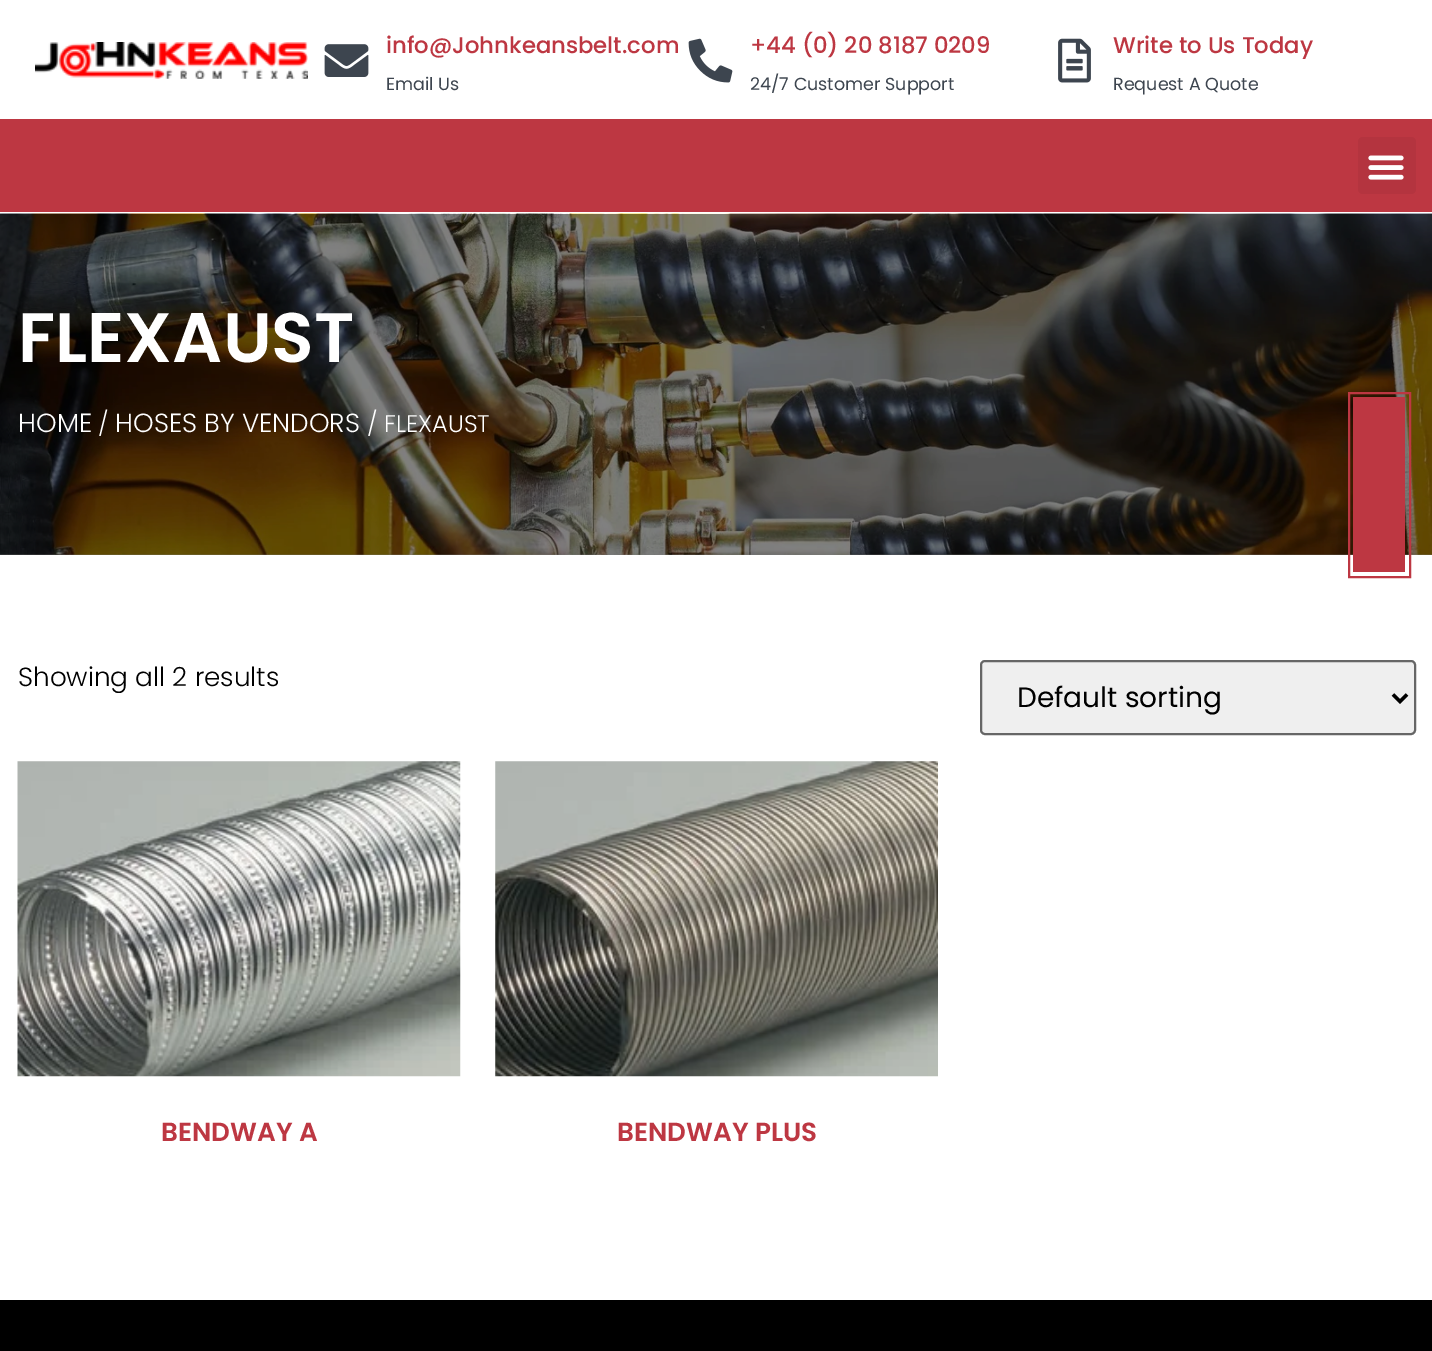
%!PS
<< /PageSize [1432 1351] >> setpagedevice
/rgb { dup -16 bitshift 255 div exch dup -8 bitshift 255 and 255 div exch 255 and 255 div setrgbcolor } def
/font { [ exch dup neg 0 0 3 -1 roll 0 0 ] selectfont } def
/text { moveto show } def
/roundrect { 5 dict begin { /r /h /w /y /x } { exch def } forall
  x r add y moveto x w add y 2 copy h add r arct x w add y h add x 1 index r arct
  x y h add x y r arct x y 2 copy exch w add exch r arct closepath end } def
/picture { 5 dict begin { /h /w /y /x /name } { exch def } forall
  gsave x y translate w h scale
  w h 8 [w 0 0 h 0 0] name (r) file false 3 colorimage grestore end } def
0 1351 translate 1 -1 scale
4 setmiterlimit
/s1 { /Poppins-Medium 22.75 font 16#BD3742 rgb } def
/s2 { /Poppins-Regular 17.5 font 16#3D454F rgb } def
/s3 { /Poppins-SemiBold 70 font 16#FFFFFF rgb } def
/s4 { /Poppins-Light 26.25 font 16#FFFFFF rgb } def
/s5 { /Poppins-Light 24 font 16#FFFFFF rgb } def
/s6 { /Poppins-Light 26.25 font 16#000000 rgb } def
/s7 { /Poppins-Regular 28 font 16#000000 rgb } def
/s8 { /Poppins-SemiBold 26.25 font 16#BD3742 rgb } def
16#FFFFFF rgb
0 0 1432 1351 rectfill
(pic1.raw) 35 42 273 37 picture
(pic2.raw) 324 44 45 33 picture
s1
(info@Johnkeansbelt.com) 386 53 text
s2
(Email Us) 386 90 text
(pic3.raw) 688 38 45 45 picture
s1
(+44 \(0\) 20 8187 0209) 750 53 text
s2
(24/7 Customer Support) 750 90 text
(pic4.raw) 1058 38 33 45 picture
s1
(Write to Us Today) 1113 53 text
s2
(Request A Quote) 1113 90 text
16#BD3742 rgb
0 119 1432 93 rectfill
16#B4343F rgb
1358 137 58 57 5 roundrect fill
(pic5.raw) 1368 155 36 25 picture
(pic6.raw) 0 213 1432 342 picture
s3
(FLEXAUST) 18 362 text
s4
(HOME) 18 432 text
s5
(/) 98 432 text
s4
(HOSES BY VENDORS) 115 432 text
s5
(/ FLEXAUST) 367 432 text
16#BD3742 rgb
1353 397 52 175 rectfill
2 setlinewidth
1349 393 61 184 rectstroke
s6
(Showing all 2 results) 18 686 text
16#EFEFEF rgb
981 661 434 73 4 roundrect gsave fill grestore
16#666666 rgb
stroke
16#000000 rgb
3.5 setlinewidth
1393 694.5 moveto 1400 701.5 lineto 1407 694.5 lineto stroke
s7
(Default sorting) 1017 707 text
(pic7.raw) 17 761 444 316 picture
s8
(BENDWAY A) 161 1141 text
(pic8.raw) 495 761 443 316 picture
(BENDWAY PLUS) 617 1141 text
16#000000 rgb
0 1300 1432 51 rectfill
showpage
